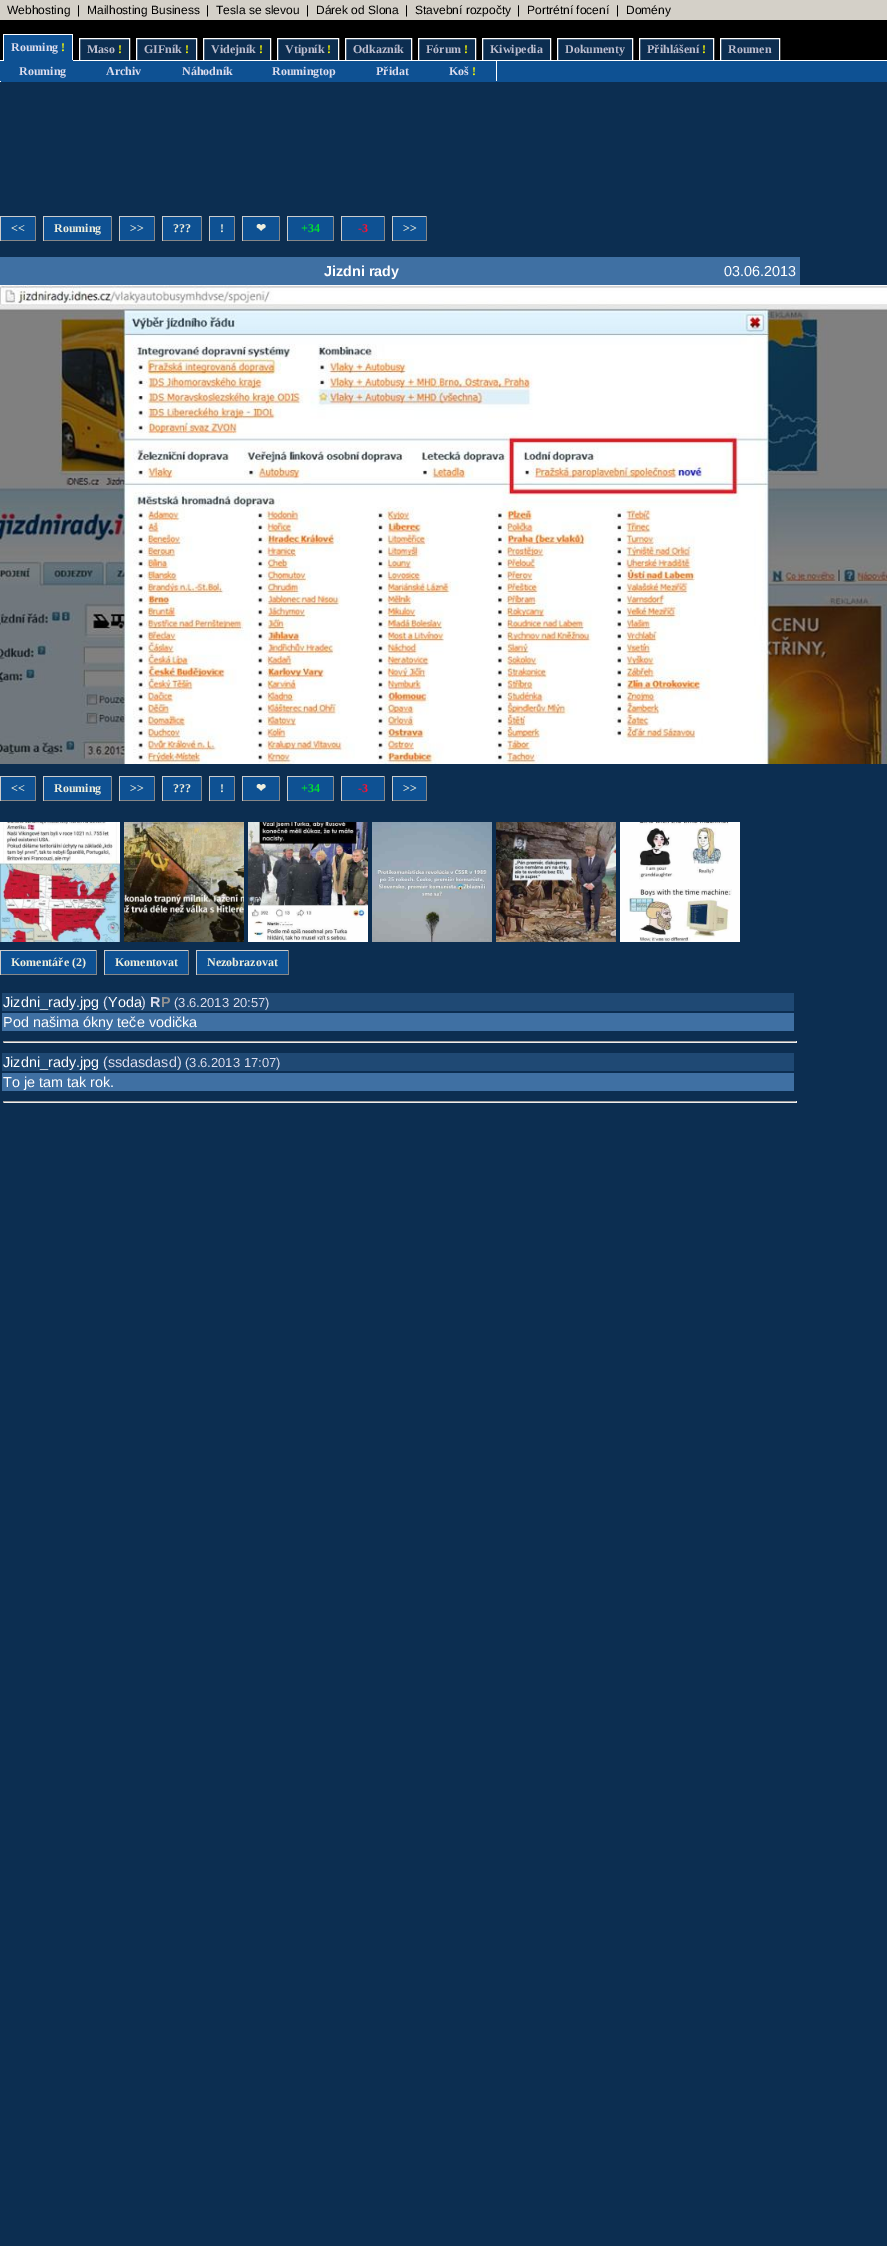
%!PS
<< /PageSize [887 2246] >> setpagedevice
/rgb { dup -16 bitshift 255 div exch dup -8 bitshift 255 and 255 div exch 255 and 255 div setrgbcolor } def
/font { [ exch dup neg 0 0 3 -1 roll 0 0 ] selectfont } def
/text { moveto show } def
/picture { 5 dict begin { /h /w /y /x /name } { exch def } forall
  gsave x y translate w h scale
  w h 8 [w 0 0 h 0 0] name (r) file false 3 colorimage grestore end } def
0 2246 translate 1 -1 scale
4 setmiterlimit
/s1 { /LiberationSans-Regular 12 font 16#000000 rgb } def
/s2 { /LiberationSerif-Bold 12 font 16#DDDDEE rgb } def
/s3 { /LiberationSerif-Bold 12 font 16#FFFF00 rgb } def
/s4 { /LiberationSerif-Bold 12 font 16#BDBDCE rgb } def
/s5 { /LiberationSerif-Bold 12 font 16#EEEEDD rgb } def
/s6 { /DejaVuSans-Bold 12 font 16#EEEEDD rgb } def
/s7 { /LiberationSerif-Bold 12 font 16#00DD33 rgb } def
/s8 { /LiberationSerif-Bold 12 font 16#FF1133 rgb } def
/s9 { /LiberationSans-Bold 14.4 font 16#FEFEFF rgb } def
/s10 { /LiberationSans-Regular 14.4 font 16#FEFEFF rgb } def
/s11 { /LiberationSans-Regular 14.4 font 16#DDDDEE rgb } def
/s12 { /LiberationSans-Bold 14.4 font 16#DDDDEE rgb } def
/s13 { /LiberationSans-Bold 14.4 font 16#909090 rgb } def
/s14 { /LiberationSans-Regular 13 font 16#DDDDEE rgb } def
16#0C2E51 rgb
0 0 887 2246 rectfill
16#D4D0C8 rgb
0 0 887 20 rectfill
s1
(Webhosting) 7 14 text
(|) 77 14 text
(Mailhosting Business) 87 14 text
(|) 206 14 text
(Tesla se slevou) 216 14 text
(|) 306 14 text
(Dárek od Slona) 316 14 text
(|) 405 14 text
(Stavební rozpočty) 415 14 text
(|) 517 14 text
(Portrétní focení) 527 14 text
(|) 616 14 text
(Domény) 626 14 text
0 20 887 40 rectfill
16#FFFFFF rgb
0 60 887 1 rectfill
16#0E5193 rgb
4 35 68 25 rectfill
16#FFFFFF rgb
3 34 70 1 rectfill
72 34 1 27 rectfill
16#0E5193 rgb
3 60 70 1 rectfill
16#FFFFFF rgb
3 34 1 27 rectfill
s2
(Rouming) 11 51 text
s3
(!) 61 51 text
16#0C2E51 rgb
79.5 38.5 moveto 129.5 38.5 lineto 129.5 60.5 lineto 79.5 60.5 lineto closepath gsave fill grestore
16#FFFFFF rgb
stroke
s4
(Maso) 87 53 text
s3
(!) 118 53 text
16#0C2E51 rgb
136.5 38.5 moveto 196.5 38.5 lineto 196.5 60.5 lineto 136.5 60.5 lineto closepath gsave fill grestore
16#FFFFFF rgb
stroke
s4
(GIFník) 144 53 text
s3
(!) 185 53 text
16#0C2E51 rgb
203.5 38.5 moveto 270.5 38.5 lineto 270.5 60.5 lineto 203.5 60.5 lineto closepath gsave fill grestore
16#FFFFFF rgb
stroke
s4
(Videjník) 211 53 text
s3
(!) 259 53 text
16#0C2E51 rgb
277.5 38.5 moveto 338.5 38.5 lineto 338.5 60.5 lineto 277.5 60.5 lineto closepath gsave fill grestore
16#FFFFFF rgb
stroke
s4
(Vtipník) 285 53 text
s3
(!) 327 53 text
16#0C2E51 rgb
345.5 38.5 moveto 411.5 38.5 lineto 411.5 60.5 lineto 345.5 60.5 lineto closepath gsave fill grestore
16#FFFFFF rgb
stroke
s4
(Odkazník) 353 53 text
16#0C2E51 rgb
418.5 38.5 moveto 475.5 38.5 lineto 475.5 60.5 lineto 418.5 60.5 lineto closepath gsave fill grestore
16#FFFFFF rgb
stroke
s4
(Fórum) 426 53 text
s3
(!) 464 53 text
16#0C2E51 rgb
482.5 38.5 moveto 550.5 38.5 lineto 550.5 60.5 lineto 482.5 60.5 lineto closepath gsave fill grestore
16#FFFFFF rgb
stroke
s4
(Kiwipedia) 490 53 text
16#0C2E51 rgb
557.5 38.5 moveto 632.5 38.5 lineto 632.5 60.5 lineto 557.5 60.5 lineto closepath gsave fill grestore
16#FFFFFF rgb
stroke
s4
(Dokumenty) 565 53 text
16#0C2E51 rgb
639.5 38.5 moveto 713.5 38.5 lineto 713.5 60.5 lineto 639.5 60.5 lineto closepath gsave fill grestore
16#FFFFFF rgb
stroke
s4
(Přihlášení) 647 53 text
s3
(!) 702 53 text
16#0C2E51 rgb
720.5 38.5 moveto 779.5 38.5 lineto 779.5 60.5 lineto 720.5 60.5 lineto closepath gsave fill grestore
16#FFFFFF rgb
stroke
s4
(Roumen) 728 53 text
16#0E5193 rgb
1 61 886 21 rectfill
16#FFFFFF rgb
0 81 1 1 rectfill
s2
(Rouming) 19 75 text
16#0E5193 rgb
0 61 1 20 rectfill
s2
(Archiv) 106 75 text
(Náhodník) 182 75 text
(Roumingtop) 272 75 text
(Přidat) 376 75 text
(Koš) 449 75 text
s3
(!) 472 75 text
16#FFFFFF rgb
496 61 1 20 rectfill
16#0E5193 rgb
1 217 34 23 rectfill
16#CCCCCC rgb
0 216 36 1 rectfill
16#888888 rgb
35 216 1 25 rectfill
0 240 36 1 rectfill
16#CCCCCC rgb
0 216 1 25 rectfill
s5
(<<) 11 232 text
16#0E5193 rgb
44 217 67 23 rectfill
16#CCCCCC rgb
43 216 69 1 rectfill
16#888888 rgb
111 216 1 25 rectfill
43 240 69 1 rectfill
16#CCCCCC rgb
43 216 1 25 rectfill
s5
(Rouming) 54 232 text
16#0E5193 rgb
120 217 34 23 rectfill
16#CCCCCC rgb
119 216 36 1 rectfill
16#888888 rgb
154 216 1 25 rectfill
119 240 36 1 rectfill
16#CCCCCC rgb
119 216 1 25 rectfill
s5
(>>) 130 232 text
16#0E5193 rgb
163 217 38 23 rectfill
16#CCCCCC rgb
162 216 40 1 rectfill
16#888888 rgb
201 216 1 25 rectfill
162 240 40 1 rectfill
16#CCCCCC rgb
162 216 1 25 rectfill
s5
(???) 173 232 text
16#0E5193 rgb
210 217 24 23 rectfill
16#CCCCCC rgb
209 216 26 1 rectfill
16#888888 rgb
234 216 1 25 rectfill
209 240 26 1 rectfill
16#CCCCCC rgb
209 216 1 25 rectfill
s5
(!) 220 232 text
16#0E5193 rgb
243 217 36 23 rectfill
16#CCCCCC rgb
242 216 38 1 rectfill
16#888888 rgb
279 216 1 25 rectfill
242 240 38 1 rectfill
16#CCCCCC rgb
242 216 1 25 rectfill
s6
(❤) 256 232 text
16#0E5193 rgb
288 217 45 23 rectfill
16#CCCCCC rgb
287 216 47 1 rectfill
16#888888 rgb
333 216 1 25 rectfill
287 240 47 1 rectfill
16#CCCCCC rgb
287 216 1 25 rectfill
s7
(+34) 301 232 text
16#0E5193 rgb
342 217 42 23 rectfill
16#CCCCCC rgb
341 216 44 1 rectfill
16#888888 rgb
384 216 1 25 rectfill
341 240 44 1 rectfill
16#CCCCCC rgb
341 216 1 25 rectfill
s8
(-3) 358 232 text
16#0E5193 rgb
393 217 33 23 rectfill
16#CCCCCC rgb
392 216 35 1 rectfill
16#888888 rgb
426 216 1 25 rectfill
392 240 35 1 rectfill
16#CCCCCC rgb
392 216 1 25 rectfill
s5
(>>) 403 232 text
16#3F70A3 rgb
0 257 800 28 rectfill
s9
(Jizdni rady) 324 276 text
s10
(03.06.2013) 724 276 text
(pic1.raw) 0 285 887 479 picture
16#0E5193 rgb
1 777 34 23 rectfill
16#CCCCCC rgb
0 776 36 1 rectfill
16#888888 rgb
35 776 1 25 rectfill
0 800 36 1 rectfill
16#CCCCCC rgb
0 776 1 25 rectfill
s5
(<<) 11 792 text
16#0E5193 rgb
44 777 67 23 rectfill
16#CCCCCC rgb
43 776 69 1 rectfill
16#888888 rgb
111 776 1 25 rectfill
43 800 69 1 rectfill
16#CCCCCC rgb
43 776 1 25 rectfill
s5
(Rouming) 54 792 text
16#0E5193 rgb
120 777 34 23 rectfill
16#CCCCCC rgb
119 776 36 1 rectfill
16#888888 rgb
154 776 1 25 rectfill
119 800 36 1 rectfill
16#CCCCCC rgb
119 776 1 25 rectfill
s5
(>>) 130 792 text
16#0E5193 rgb
163 777 38 23 rectfill
16#CCCCCC rgb
162 776 40 1 rectfill
16#888888 rgb
201 776 1 25 rectfill
162 800 40 1 rectfill
16#CCCCCC rgb
162 776 1 25 rectfill
s5
(???) 173 792 text
16#0E5193 rgb
210 777 24 23 rectfill
16#CCCCCC rgb
209 776 26 1 rectfill
16#888888 rgb
234 776 1 25 rectfill
209 800 26 1 rectfill
16#CCCCCC rgb
209 776 1 25 rectfill
s5
(!) 220 792 text
16#0E5193 rgb
243 777 36 23 rectfill
16#CCCCCC rgb
242 776 38 1 rectfill
16#888888 rgb
279 776 1 25 rectfill
242 800 38 1 rectfill
16#CCCCCC rgb
242 776 1 25 rectfill
s6
(❤) 256 792 text
16#0E5193 rgb
288 777 45 23 rectfill
16#CCCCCC rgb
287 776 47 1 rectfill
16#888888 rgb
333 776 1 25 rectfill
287 800 47 1 rectfill
16#CCCCCC rgb
287 776 1 25 rectfill
s7
(+34) 301 792 text
16#0E5193 rgb
342 777 42 23 rectfill
16#CCCCCC rgb
341 776 44 1 rectfill
16#888888 rgb
384 776 1 25 rectfill
341 800 44 1 rectfill
16#CCCCCC rgb
341 776 1 25 rectfill
s8
(-3) 358 792 text
16#0E5193 rgb
393 777 33 23 rectfill
16#CCCCCC rgb
392 776 35 1 rectfill
16#888888 rgb
426 776 1 25 rectfill
392 800 35 1 rectfill
16#CCCCCC rgb
392 776 1 25 rectfill
s5
(>>) 403 792 text
(pic2.raw) 0 822 120 120 picture
(pic3.raw) 124 822 120 120 picture
(pic4.raw) 248 822 120 120 picture
(pic5.raw) 372 822 120 120 picture
(pic6.raw) 496 822 120 120 picture
(pic7.raw) 620 822 120 120 picture
16#0E5193 rgb
1 951 95 23 rectfill
16#CCCCCC rgb
0 950 97 1 rectfill
16#888888 rgb
96 950 1 25 rectfill
0 974 97 1 rectfill
16#CCCCCC rgb
0 950 1 25 rectfill
s5
(Komentáře \(2\)) 11 966 text
16#0E5193 rgb
105 951 83 23 rectfill
16#CCCCCC rgb
104 950 85 1 rectfill
16#888888 rgb
188 950 1 25 rectfill
104 974 85 1 rectfill
16#CCCCCC rgb
104 950 1 25 rectfill
s5
(Komentovat) 115 966 text
16#0E5193 rgb
197 951 91 23 rectfill
16#CCCCCC rgb
196 950 93 1 rectfill
16#888888 rgb
288 950 1 25 rectfill
196 974 93 1 rectfill
16#CCCCCC rgb
196 950 1 25 rectfill
s5
(Nezobrazovat) 207 966 text
16#1F4974 rgb
2 993 792 18 rectfill
s10
(Jizdni_rady.jpg) 3 1007 text
s11
(\() 103 1007 text
s10
(Yoda) 108 1007 text
s11
(\)) 141 1007 text
s12
(R) 150 1007 text
s13
(P) 161 1007 text
s14
(\(3.6.2013 20:57\)) 174 1007 text
16#3F70A3 rgb
2 1013 792 18 rectfill
s10
(Pod našima ókny teče vodička) 3 1027 text
16#9F9F9F rgb
3 1041 794 1 rectfill
16#EEEEEE rgb
796 1041 1 2 rectfill
3 1042 794 1 rectfill
16#9F9F9F rgb
3 1041 1 2 rectfill
16#1F4974 rgb
2 1053 792 18 rectfill
s10
(Jizdni_rady.jpg) 3 1067 text
s11
(\(ssdasdasd\)) 103 1067 text
s14
(\(3.6.2013 17:07\)) 185 1067 text
16#3F70A3 rgb
2 1073 792 18 rectfill
s10
(To je tam tak rok.) 3 1087 text
16#9F9F9F rgb
3 1101 794 1 rectfill
16#EEEEEE rgb
796 1101 1 2 rectfill
3 1102 794 1 rectfill
16#9F9F9F rgb
3 1101 1 2 rectfill
showpage
